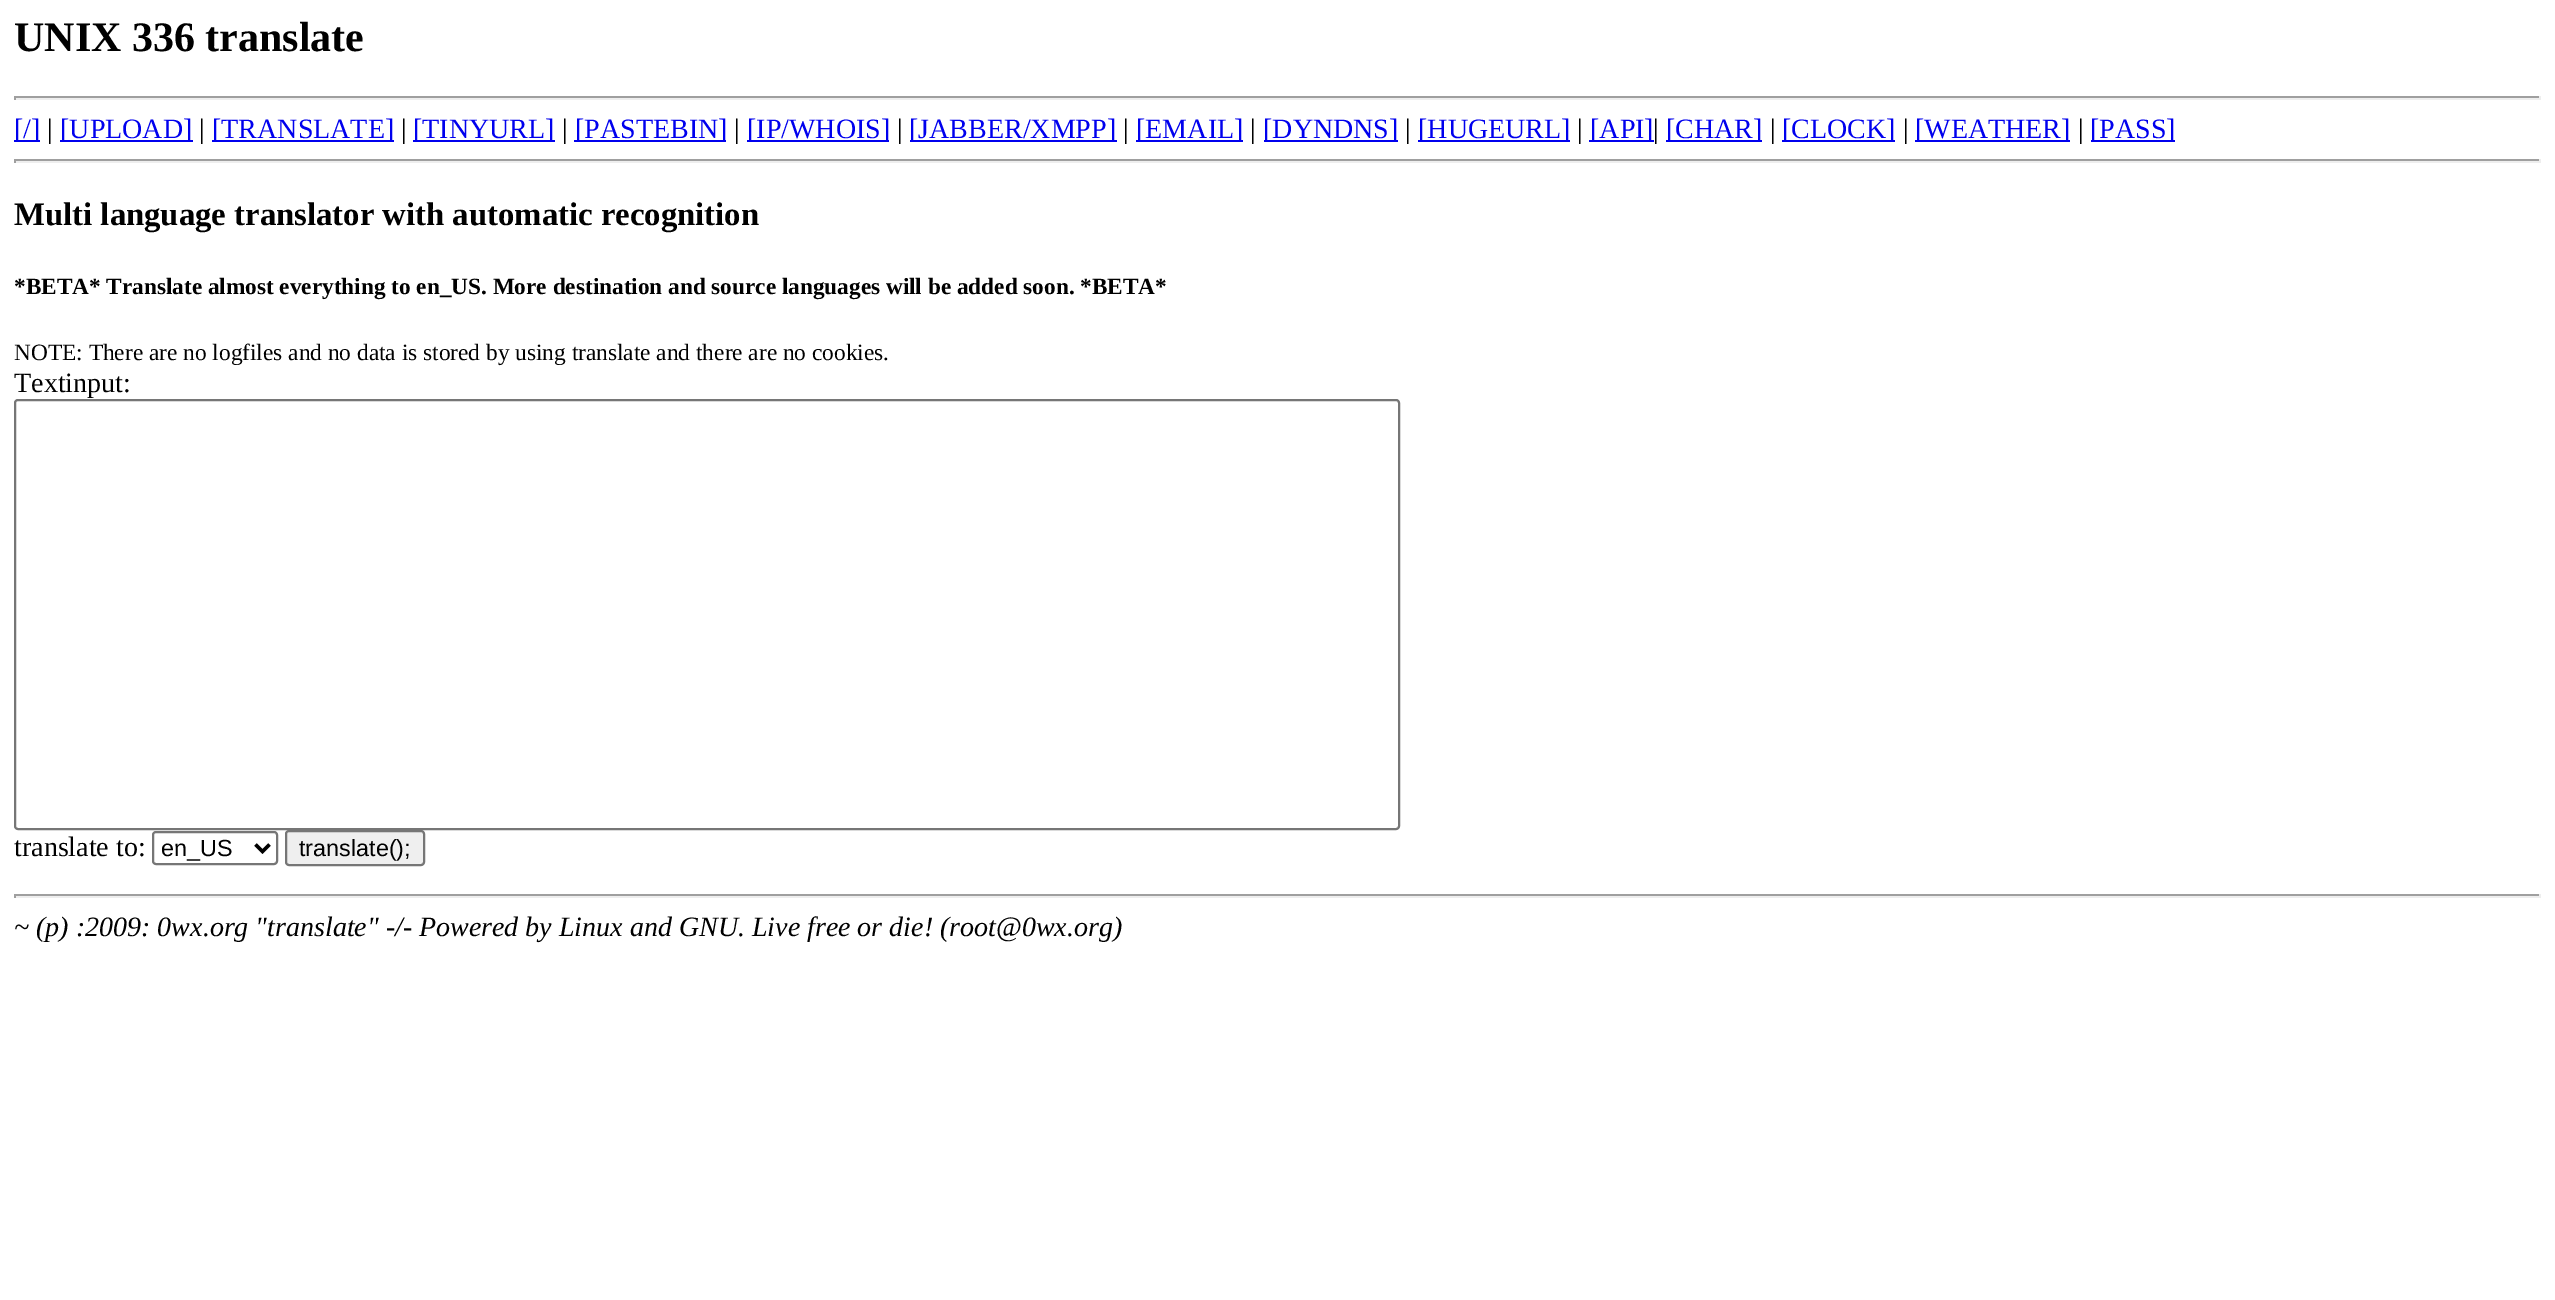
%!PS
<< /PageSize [2555 1300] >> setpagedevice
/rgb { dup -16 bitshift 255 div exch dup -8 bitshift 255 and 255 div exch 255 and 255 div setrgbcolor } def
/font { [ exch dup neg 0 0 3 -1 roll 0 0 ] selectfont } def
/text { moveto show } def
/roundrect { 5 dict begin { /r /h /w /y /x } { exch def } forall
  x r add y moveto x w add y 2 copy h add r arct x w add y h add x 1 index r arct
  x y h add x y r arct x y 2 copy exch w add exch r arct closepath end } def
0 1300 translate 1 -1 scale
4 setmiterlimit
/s1 { /LiberationSerif-Bold 42 font 16#000000 rgb } def
/s2 { /LiberationSerif-Regular 28 font 16#0000EE rgb } def
/s3 { /LiberationSerif-Regular 28 font 16#000000 rgb } def
/s4 { /LiberationSerif-Bold 32.75 font 16#000000 rgb } def
/s5 { /LiberationSerif-Bold 23.25 font 16#000000 rgb } def
/s6 { /LiberationSerif-Regular 23.35 font 16#000000 rgb } def
/s7 { /LiberationSans-Regular 23.35 font 16#000000 rgb } def
/s8 { /LiberationSerif-Italic 28 font 16#000000 rgb } def
16#FFFFFF rgb
0 0 2555 1300 rectfill
s1
(UNIX 336 translate) 14 51 text
16#9F9F9F rgb
14 96 2527 2 rectfill
16#EEEEEE rgb
2539 96 2 4 rectfill
14 98 2527 2 rectfill
16#9F9F9F rgb
14 96 2 4 rectfill
16#0000EE rgb
14 140 26 2 rectfill
s2
([/]) 14 138 text
s3
(|) 47 138 text
16#0000EE rgb
60 140 133 2 rectfill
([UPLOAD]) 60 138 text
s3
(|) 199 138 text
16#0000EE rgb
212 140 182 2 rectfill
([TRANSLATE]) 212 138 text
s3
(|) 401 138 text
16#0000EE rgb
413 140 142 2 rectfill
([TINYURL]) 413 138 text
s3
(|) 562 138 text
16#0000EE rgb
574 140 152 2 rectfill
([PASTEBIN]) 575 138 text
s3
(|) 734 138 text
16#0000EE rgb
747 140 142 2 rectfill
([IP/WHOIS]) 747 138 text
s3
(|) 897 138 text
16#0000EE rgb
910 140 207 2 rectfill
([JABBER/XMPP]) 909 138 text
s3
(|) 1123 138 text
16#0000EE rgb
1136 140 107 2 rectfill
([EMAIL]) 1136 138 text
s3
(|) 1250 138 text
16#0000EE rgb
1264 140 134 2 rectfill
([DYNDNS]) 1263 138 text
s3
(|) 1405 138 text
16#0000EE rgb
1418 140 152 2 rectfill
([HUGEURL]) 1418 138 text
s3
(|) 1577 138 text
16#0000EE rgb
1589 140 65 2 rectfill
([API]) 1590 138 text
s3
(|) 1653 138 text
16#0000EE rgb
1666 140 96 2 rectfill
([CHAR]) 1666 138 text
s3
(|) 1770 138 text
16#0000EE rgb
1782 140 113 2 rectfill
([CLOCK]) 1782 138 text
s3
(|) 1903 138 text
16#0000EE rgb
1915 140 155 2 rectfill
([WEATHER]) 1915 138 text
s3
(|) 2078 138 text
16#0000EE rgb
2091 140 84 2 rectfill
([PASS]) 2090 138 text
16#9F9F9F rgb
14 159 2527 2 rectfill
16#EEEEEE rgb
2539 159 2 4 rectfill
14 161 2527 2 rectfill
16#9F9F9F rgb
14 159 2 4 rectfill
s4
(Multi language translator with automatic recognition) 14 225 text
s5
(*BETA* Translate almost everything to en_US. More destination and source languages will be added soon. *BETA*) 14 294 text
s6
(NOTE: There are no logfiles and no data is stored by using translate and there are no cookies.) 14 360 text
s3
(Textinput:) 14 392 text
16#767676 rgb
2 setlinewidth
15 400 1384 429 3 roundrect stroke
s3
(translate to:) 14 856 text
16#767676 rgb
153 832 124 32 3 roundrect stroke
16#000000 rgb
3.5 setlinewidth
255.5 844.5 moveto 262.5 851.5 lineto 269.5 844.5 lineto stroke
s7
(en_US) 161 856 text
16#EFEFEF rgb
286 831 138 34 3 roundrect gsave fill grestore
16#767676 rgb
2 setlinewidth
stroke
s7
(translate\(\);) 299 856 text
16#9F9F9F rgb
14 894 2527 2 rectfill
16#EEEEEE rgb
2539 894 2 4 rectfill
14 896 2527 2 rectfill
16#9F9F9F rgb
14 894 2 4 rectfill
s8
(~ \(p\) :2009: 0wx.org "translate" -/- Powered by Linux and GNU. Live free or die! \(root@0wx.org\)) 14 936 text
showpage
